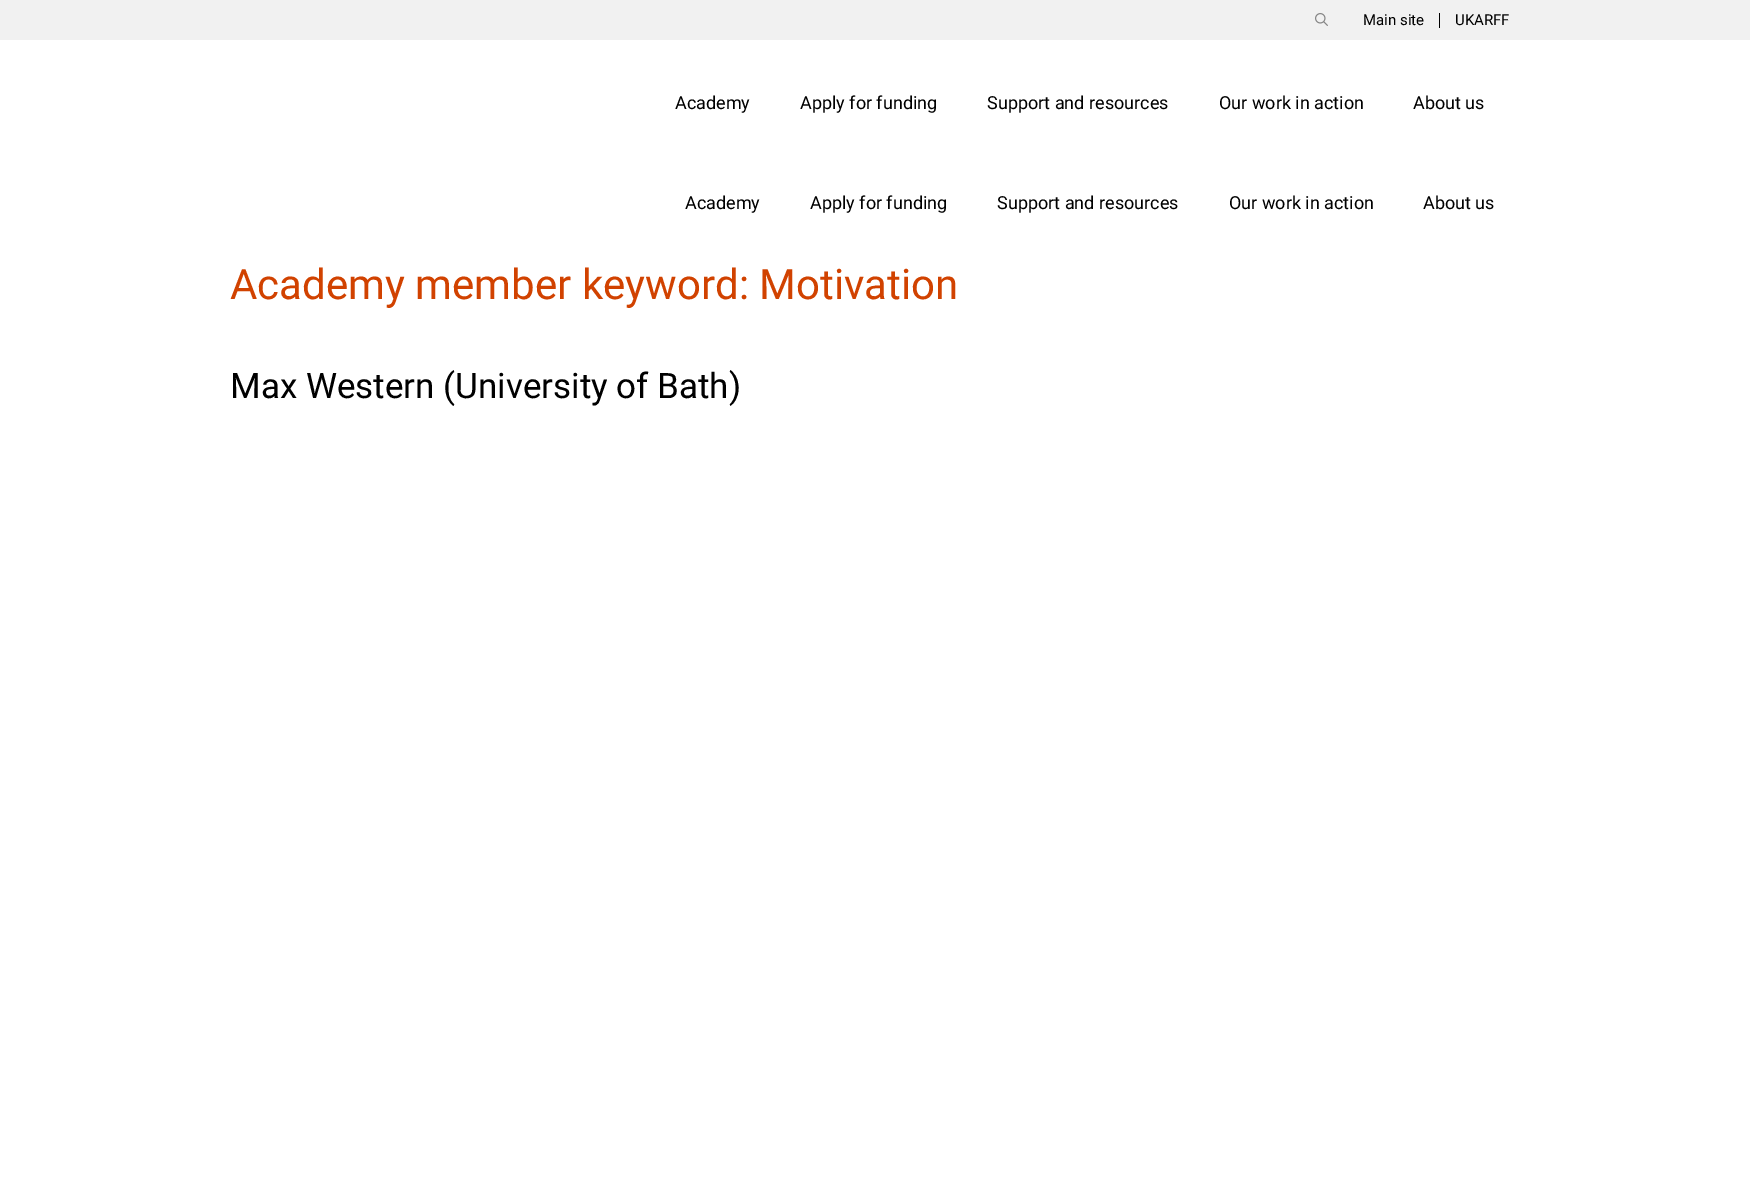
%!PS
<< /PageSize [1750 1190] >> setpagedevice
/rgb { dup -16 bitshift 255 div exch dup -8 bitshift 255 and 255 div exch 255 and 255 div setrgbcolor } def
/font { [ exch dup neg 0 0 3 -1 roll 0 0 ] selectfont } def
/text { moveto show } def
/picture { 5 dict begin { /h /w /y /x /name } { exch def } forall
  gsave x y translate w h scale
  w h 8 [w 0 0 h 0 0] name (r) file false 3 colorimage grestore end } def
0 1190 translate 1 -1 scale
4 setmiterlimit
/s1 { /Roboto-Regular 15 font 16#000000 rgb } def
/s2 { /Roboto-Regular 18 font 16#000000 rgb } def
/s3 { /Roboto-Regular 42 font 16#D14200 rgb } def
/s4 { /Roboto-Regular 35 font 16#000000 rgb } def
16#FFFFFF rgb
0 0 1750 1190 rectfill
16#F1F1F1 rgb
0 0 1750 40 rectfill
(pic1.raw) 1315 13 13 13 picture
16#000000 rgb
1439 13 1 15 rectfill
s1
(Main site) 1363 25 text
(UKARFF) 1455 25 text
s2
(Academy) 675 109 text
(Apply for funding) 800 109 text
(Support and resources) 987 109 text
(Our work in action) 1219 109 text
(About us) 1413 109 text
(Academy) 685 209 text
(Apply for funding) 810 209 text
(Support and resources) 997 209 text
(Our work in action) 1229 209 text
(About us) 1423 209 text
s3
(Academy member keyword: Motivation) 230 299 text
s4
(Max Western \(University of Bath\)) 230 398 text
showpage
